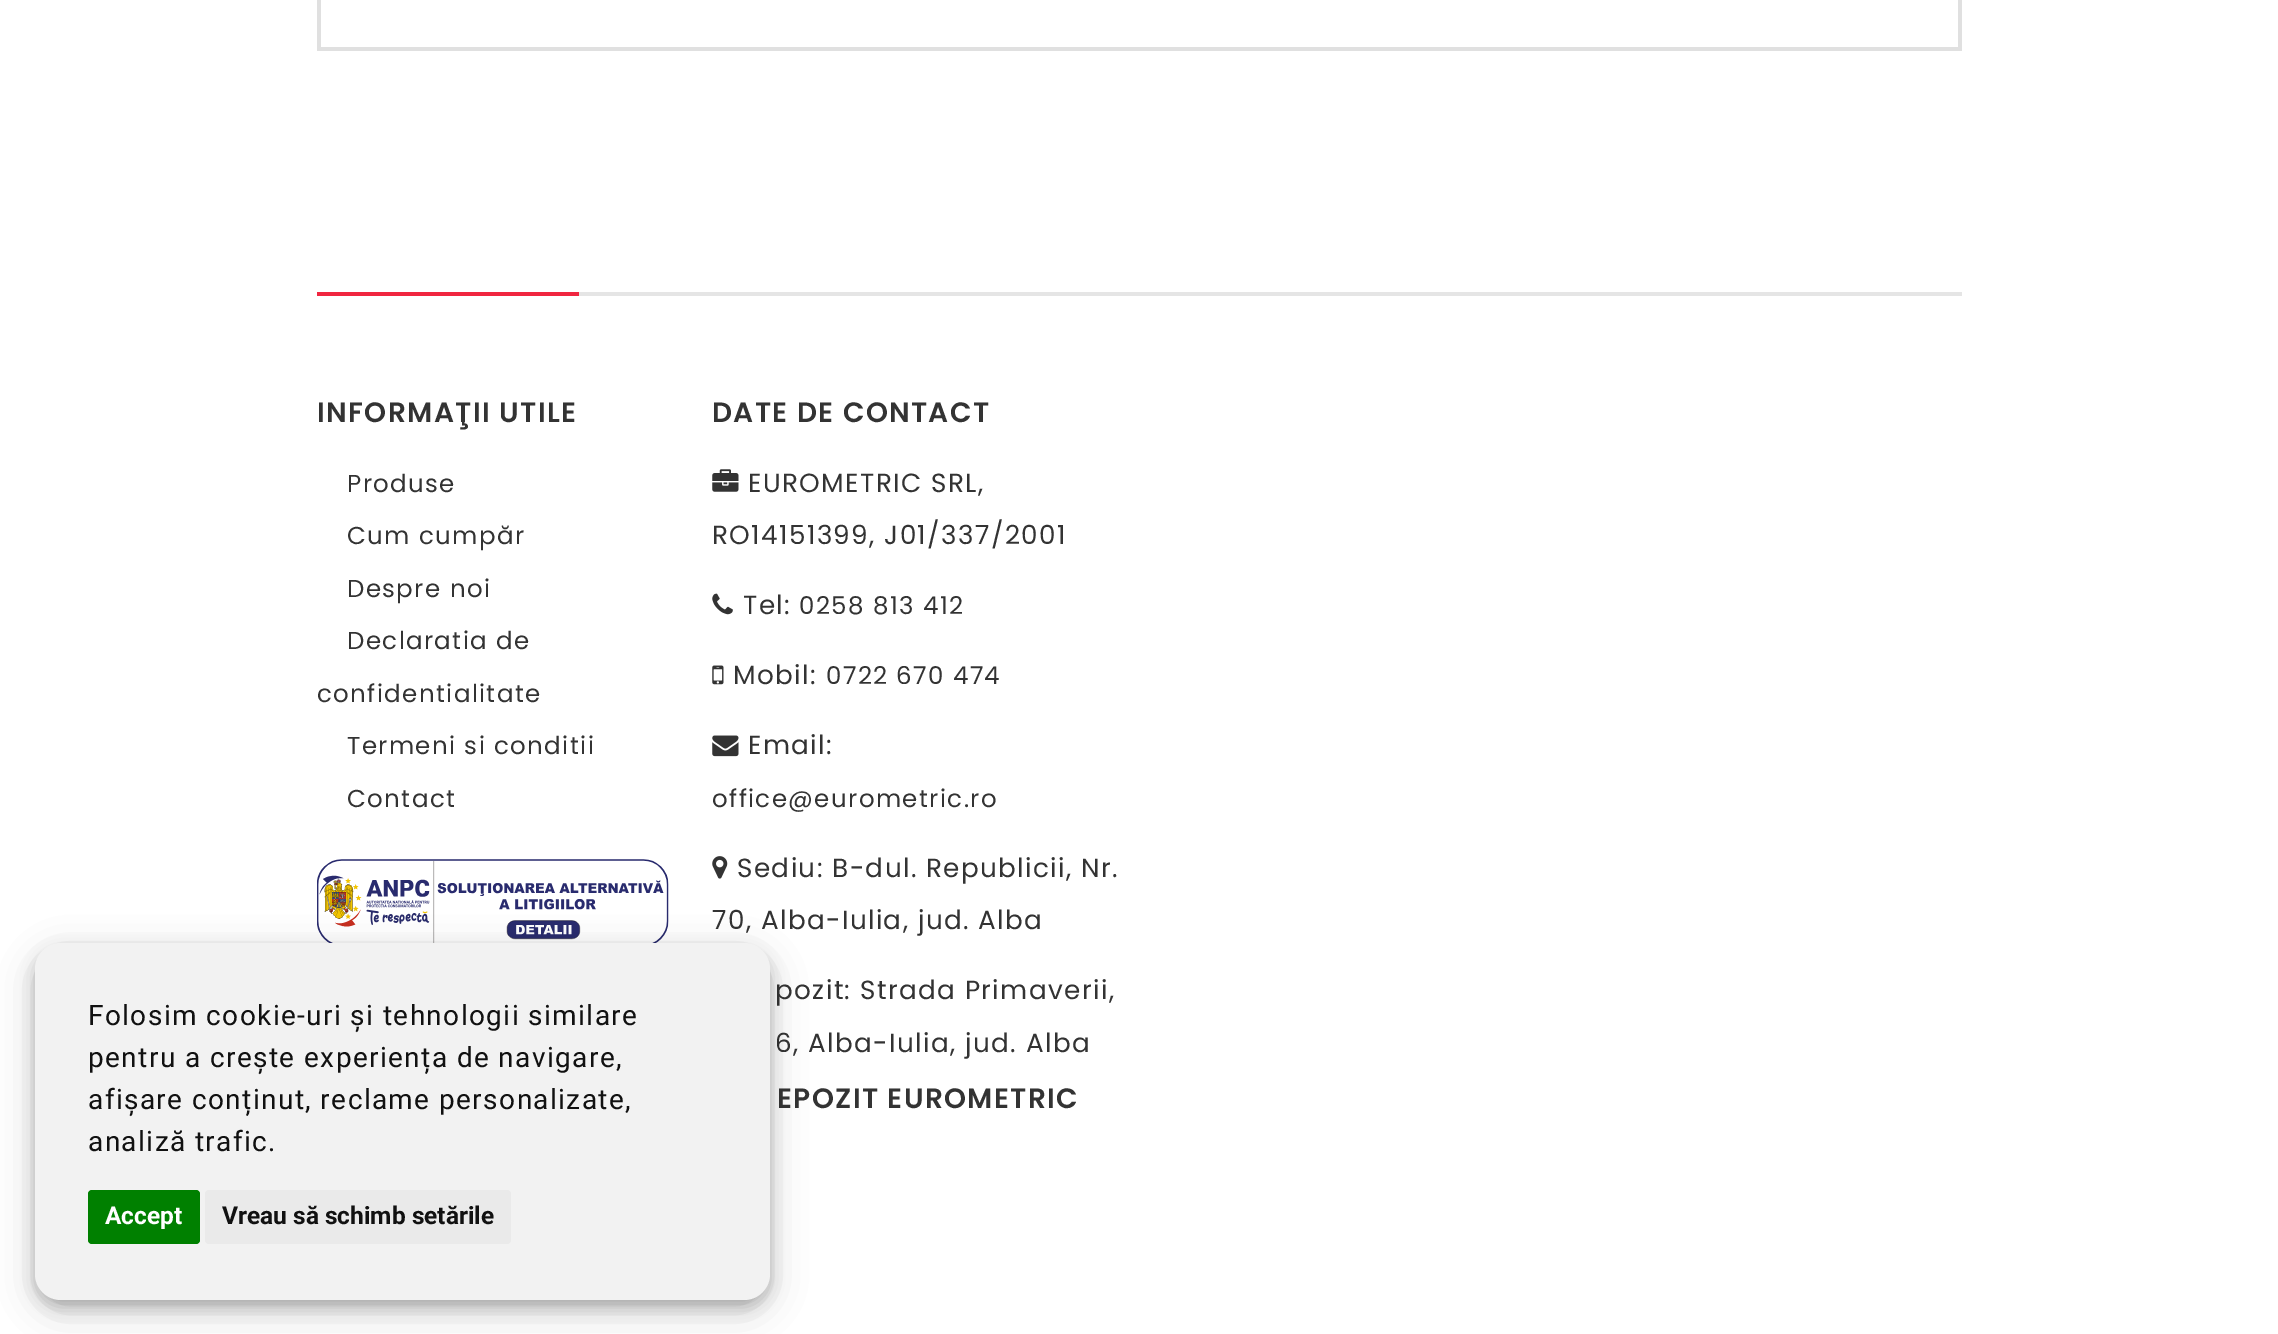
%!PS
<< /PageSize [2278 1334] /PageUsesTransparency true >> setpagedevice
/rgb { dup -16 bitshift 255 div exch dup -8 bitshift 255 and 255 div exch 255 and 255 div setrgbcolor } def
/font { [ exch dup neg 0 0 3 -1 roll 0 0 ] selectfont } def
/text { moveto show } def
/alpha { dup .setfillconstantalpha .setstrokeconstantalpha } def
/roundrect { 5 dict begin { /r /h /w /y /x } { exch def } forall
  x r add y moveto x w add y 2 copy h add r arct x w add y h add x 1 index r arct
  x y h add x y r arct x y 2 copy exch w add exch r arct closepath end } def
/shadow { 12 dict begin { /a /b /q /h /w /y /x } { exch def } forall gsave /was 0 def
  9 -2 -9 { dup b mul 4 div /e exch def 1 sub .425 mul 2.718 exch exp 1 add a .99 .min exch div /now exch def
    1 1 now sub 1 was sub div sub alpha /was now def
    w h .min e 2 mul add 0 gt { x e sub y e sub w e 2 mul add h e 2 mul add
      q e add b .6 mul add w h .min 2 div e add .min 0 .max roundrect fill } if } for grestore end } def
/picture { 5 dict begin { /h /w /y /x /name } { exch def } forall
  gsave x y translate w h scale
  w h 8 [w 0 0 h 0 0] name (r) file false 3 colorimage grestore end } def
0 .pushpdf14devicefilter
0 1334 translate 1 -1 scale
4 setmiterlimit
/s1 { /Roboto-Bold 24.5 font 16#FFFFFF rgb } def
/s2 { /Roboto-Bold 24.5 font 16#111111 rgb } def
16#FFFFFF rgb
0 0 2278 1334 rectfill
16#E0E0E0 rgb
1958 0 4 51 rectfill
317 47 1645 4 rectfill
317 0 4 51 rectfill
16#E5E5E5 rgb
579 292 1383 4 rectfill
16#F02640 rgb
317 292 262 4 rectfill
/Poppins-SemiBold 28 font
16#333333 rgb
317 422 moveto 1.4 0 (INFORMAŢII UTILE) ashow
/Poppins-Regular 24.5 font
347 492 moveto 1.4 0 (Produse) ashow
347 544 moveto 1.4 0 (Cum cumpăr) ashow
347 597 moveto 1.4 0 (Despre noi) ashow
347 649 moveto 1.4 0 (Declaratia de) ashow
317 702 moveto 1.4 0 (confidentialitate) ashow
347 754 moveto 1.4 0 (Termeni si conditii) ashow
347 807 moveto 1.4 0 (Contact) ashow
(pic1.raw) 317 859 352 84 picture
/Poppins-SemiBold 28 font
712 422 moveto 1.4 0 (DATE DE CONTACT) ashow
(pic2.raw) 712 469 27 23 picture
/Poppins-Regular 26.25 font
748 492 moveto 1.4 0 (EUROMETRIC SRL,) ashow
712 544 moveto 1.4 0 (RO14151399, J01/337/2001) ashow
(pic3.raw) 712 593 21 22 picture
743 614 moveto 1.4 0 (Tel:) ashow
/Poppins-Regular 24.5 font
799 614 moveto 1.4 0 (0258 813 412) ashow
(pic4.raw) 712 665 12 20 picture
/Poppins-Regular 26.25 font
733 684 moveto 1.4 0 (Mobil:) ashow
/Poppins-Regular 24.5 font
826 684 moveto 1.4 0 (0722 670 474) ashow
(pic5.raw) 712 735 27 22 picture
/Poppins-Regular 26.25 font
748 754 moveto 1.4 0 (Email:) ashow
/Poppins-Regular 24.5 font
712 807 moveto 1.4 0 (office@eurometric.ro) ashow
(pic6.raw) 712 856 16 23 picture
/Poppins-Regular 26.25 font
737 877 moveto 1.4 0 (Sediu: B-dul. Republicii, Nr.) ashow
712 929 moveto 1.4 0 (70, Alba-Iulia, jud. Alba) ashow
775 999 moveto 1.4 0 (pozit: Strada Primaverii,) ashow
775 1052 moveto 1.4 0 (6, Alba-Iulia, jud. Alba) ashow
/Poppins-SemiBold 28 font
777 1108 moveto 1.4 0 (EPOZIT EUROMETRIC) ashow
16#000000 rgb
35 954 735 357 26 17.5 0.19 shadow
35 950 735 357 26 7 0.2 shadow
16#F2F2F2 rgb
35 943 735 357 26 roundrect fill
/Roboto-Regular 28 font
16#111111 rgb
88 1025 moveto 1.4 0 (Folosim cookie-uri și tehnologii similare) ashow
88 1067 moveto 1.4 0 (pentru a crește experiența de navigare,) ashow
88 1109 moveto 1.4 0 (afișare conținut, reclame personalizate,) ashow
88 1151 moveto 1.4 0 (analiză trafic.) ashow
16#008000 rgb
88 1190 112 54 4 roundrect fill
s1
(Accept) 105 1224 text
16#EAEAEA rgb
205 1190 306 54 4 roundrect fill
s2
(Vreau să schimb setările) 222 1224 text
.poppdf14devicefilter showpage
